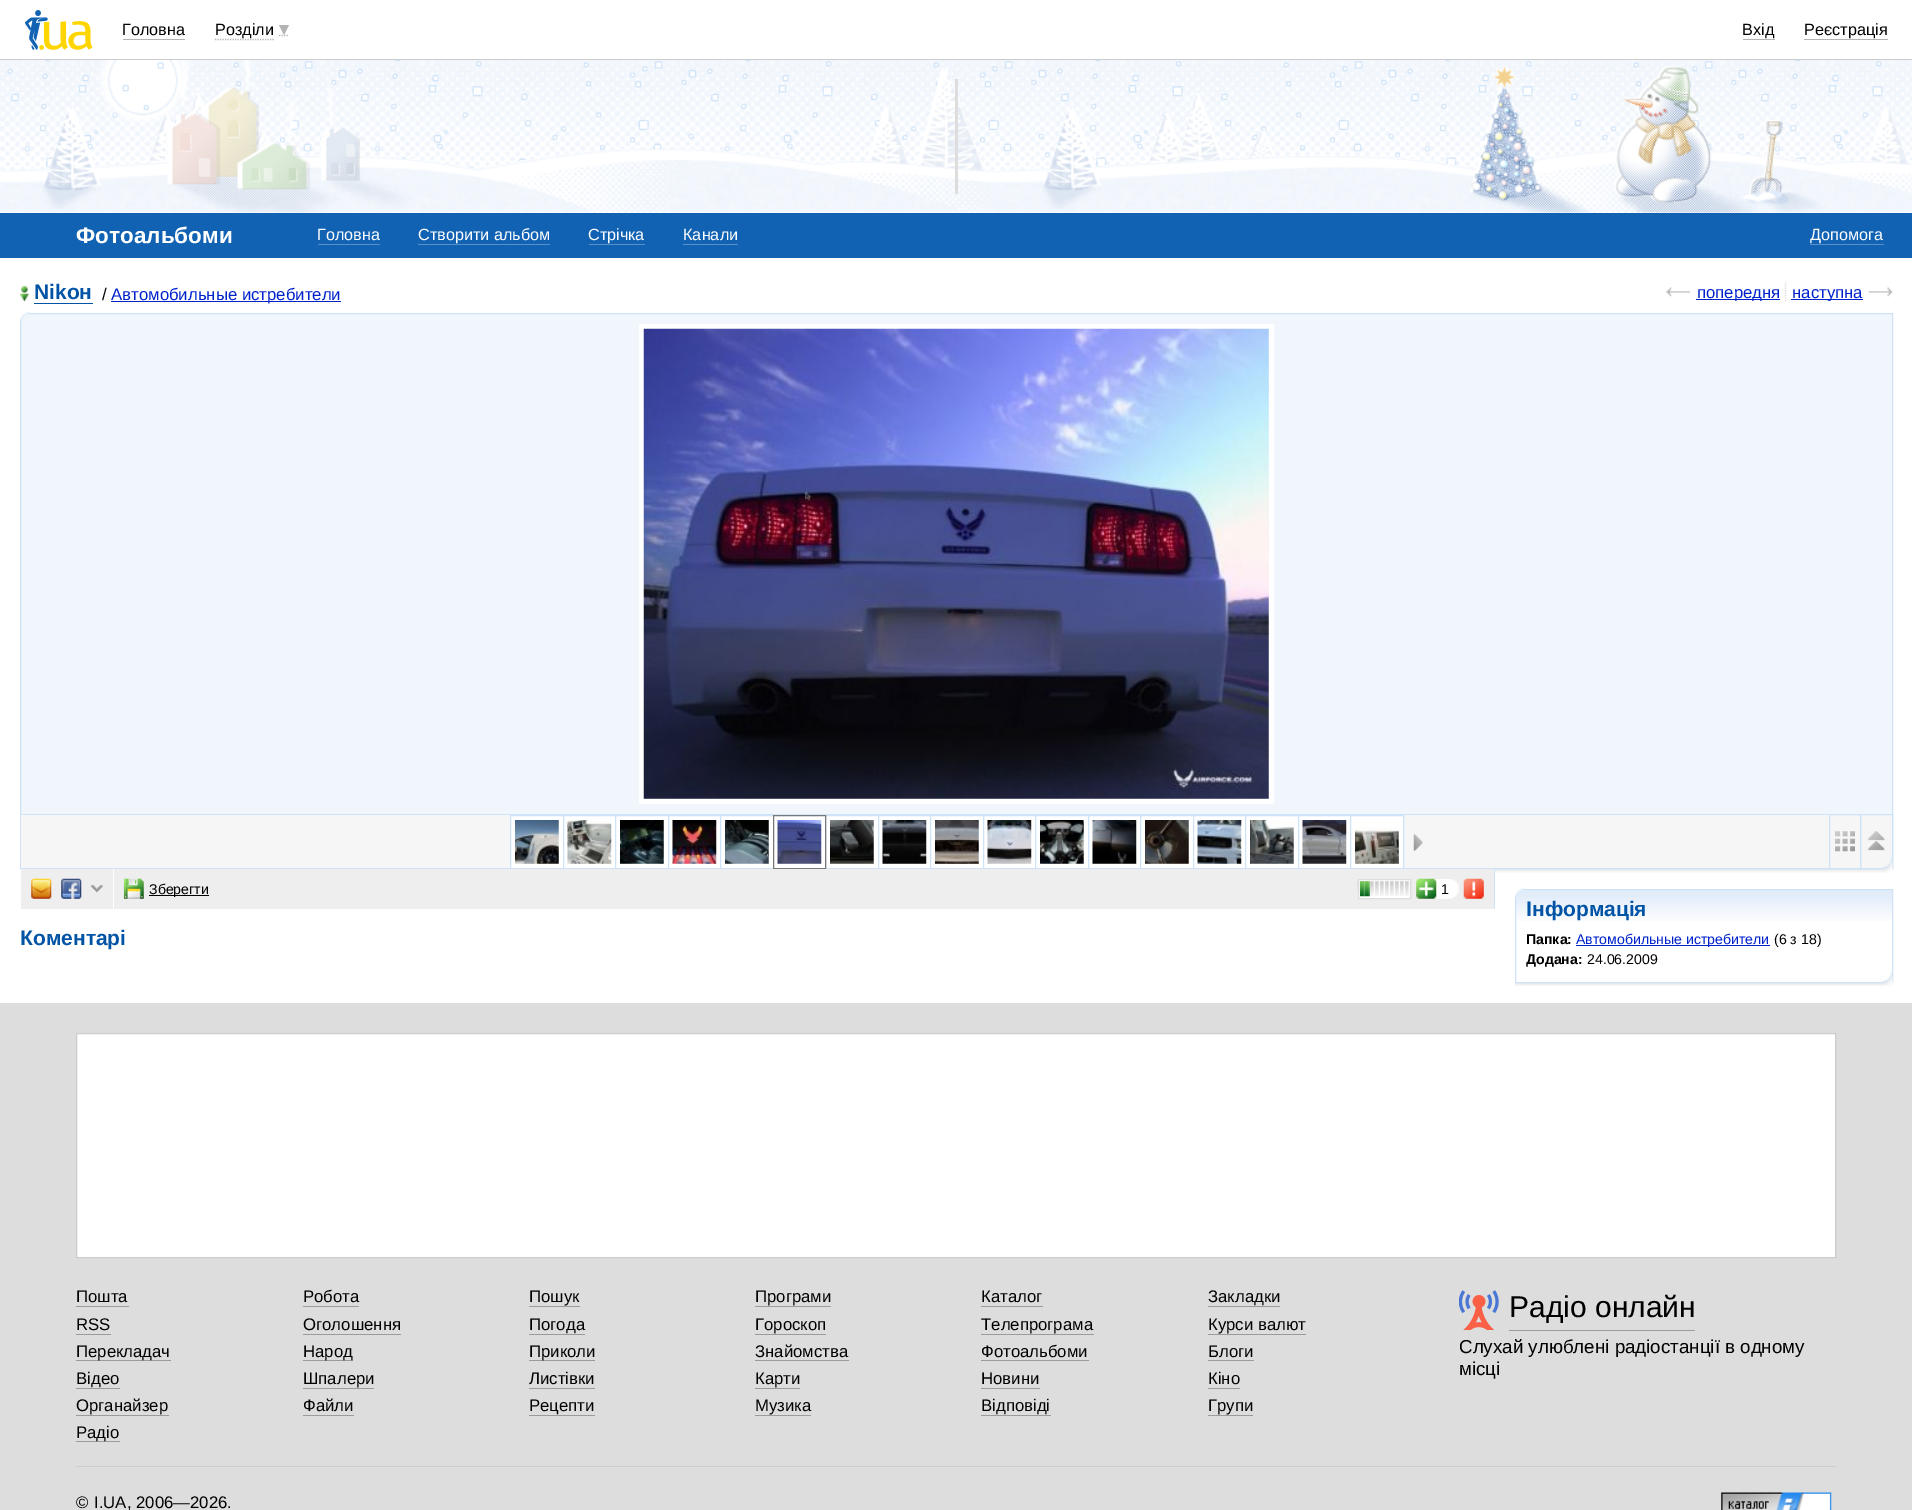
%!PS
<< /PageSize [1912 1510] >> setpagedevice
/rgb { dup -16 bitshift 255 div exch dup -8 bitshift 255 and 255 div exch 255 and 255 div setrgbcolor } def
/font { [ exch dup neg 0 0 3 -1 roll 0 0 ] selectfont } def
/text { moveto show } def
/picture { 5 dict begin { /h /w /y /x /name } { exch def } forall
  gsave x y translate w h scale
  w h 8 [w 0 0 h 0 0] name (r) file false 3 colorimage grestore end } def
0 1510 translate 1 -1 scale
4 setmiterlimit
/s1 { /LiberationSans-Regular 16.25 font 16#000000 rgb } def
/s2 { /LiberationSans-Bold 22.5 font 16#FFFFFF rgb } def
/s3 { /LiberationSans-Regular 16.25 font 16#FFFFFF rgb } def
/s4 { /LiberationSans-Bold 21 font 16#0053A5 rgb } def
/s5 { /LiberationSans-Regular 16.75 font 16#000000 rgb } def
/s6 { /LiberationSans-Regular 16.75 font 16#0022CC rgb } def
/s7 { /LiberationSans-Regular 14.1 font 16#000000 rgb } def
/s8 { /LiberationSans-Bold 14.1 font 16#000000 rgb } def
/s9 { /LiberationSans-Regular 14.1 font 16#0022CC rgb } def
/s10 { /LiberationSans-Regular 30 font 16#000000 rgb } def
/s11 { /LiberationSans-Regular 18.75 font 16#000000 rgb } def
16#FFFFFF rgb
0 0 1912 1510 rectfill
16#CCCCCC rgb
0 59 1912 1 rectfill
(pic1.raw) 25 10 68 40 picture
s1
(Головна) 122 35 text
16#B3B3B3 rgb
123 39 62 1 rectfill
1.2 setlinewidth
[1.25 1.25] 0 setdash
215 39.5 moveto 274 39.5 lineto stroke
279 35.5 moveto 289 35.5 lineto stroke
s1
(Розділи) 215 35 text
16#B3B3B3 rgb
279 25 moveto 289 25 lineto 284 35 lineto closepath fill
s1
(Вхід) 1742 35 text
16#B3B3B3 rgb
1743 39 32 1 rectfill
s1
(Реєстрація) 1804 35 text
16#B3B3B3 rgb
1804 39 84 1 rectfill
(pic2.raw) 0 60 1912 153 picture
16#DDDDDD rgb
955 79 3 115 rectfill
16#1162B3 rgb
0 213 1912 45 rectfill
s2
(Фотоальбоми) 76 243 text
s3
(Головна) 317 240 text
16#5891CA rgb
318 244 62 1 rectfill
s3
(Створити альбом) 418 240 text
16#5891CA rgb
418 244 132 1 rectfill
s3
(Стрічка) 588 240 text
16#5891CA rgb
589 244 56 1 rectfill
s3
(Канали) 683 240 text
16#5891CA rgb
683 244 55 1 rectfill
s3
(Допомога) 1810 240 text
16#5891CA rgb
1810 244 74 1 rectfill
16#0053A5 rgb
34 303 59 1 rectfill
(pic3.raw) 20 286 9 16 picture
s4
(Nikон) 34 299 text
s5
(/) 102 300 text
16#0022CC rgb
111 301 230 1 rectfill
(Автомобильные истребители) 111 300 text
16#DDDDDD rgb
1785.5 282.5 moveto 1785.5 301 lineto stroke
(pic4.raw) 1666 287 24 10 picture
16#0022CC rgb
1696 299 84 1 rectfill
gsave
1656 283 237 18 rectclip
(попередня) 1697 298 text
grestore
1791 299 72 1 rectfill
gsave
1656 283 237 18 rectclip
(наступна) 1792 298 text
grestore
(pic5.raw) 1868 287 25 10 picture
(pic6.raw) 1495 869 398 4 picture
16#F0F6FC rgb
21 314 1871 550 rectfill
16#CEE3F7 rgb
1 setlinewidth
[] 0 setdash
20.5 313.5 1872 555 rectstroke
(pic7.raw) 20 312 10 11 picture
16#FFFFFF rgb
5 setlinewidth
641.5 326.5 630 475 rectstroke
(pic8.raw) 643 328 626 471 picture
16#F6F6F6 rgb
21 815 1870 53 rectfill
16#CEE3F7 rgb
21 814 1808 1 rectfill
16#FFFFFF rgb
510.5 815.5 moveto 563.5 815.5 lineto 563.5 868.5 lineto 510.5 868.5 lineto closepath gsave fill grestore
16#CEE3F7 rgb
1 setlinewidth
stroke
(pic9.raw) 515 820 44 44 picture
16#FFFFFF rgb
563.5 815.5 moveto 615.5 815.5 lineto 615.5 868.5 lineto 563.5 868.5 lineto closepath gsave fill grestore
16#CEE3F7 rgb
stroke
(pic10.raw) 567 820 45 44 picture
16#FFFFFF rgb
615.5 815.5 moveto 668.5 815.5 lineto 668.5 868.5 lineto 615.5 868.5 lineto closepath gsave fill grestore
16#CEE3F7 rgb
stroke
(pic11.raw) 620 820 44 44 picture
16#FFFFFF rgb
668.5 815.5 moveto 720.5 815.5 lineto 720.5 868.5 lineto 668.5 868.5 lineto closepath gsave fill grestore
16#CEE3F7 rgb
stroke
(pic12.raw) 672 820 45 44 picture
16#FFFFFF rgb
720.5 815.5 moveto 773.5 815.5 lineto 773.5 868.5 lineto 720.5 868.5 lineto closepath gsave fill grestore
16#CEE3F7 rgb
stroke
(pic13.raw) 725 820 44 44 picture
16#FFFFFF rgb
825.5 815.5 moveto 878.5 815.5 lineto 878.5 868.5 lineto 825.5 868.5 lineto closepath gsave fill grestore
16#CEE3F7 rgb
stroke
16#FFFFFF rgb
773.5 815.5 moveto 825.5 815.5 lineto 825.5 868.5 lineto 773.5 868.5 lineto closepath gsave fill grestore
16#777777 rgb
stroke
(pic14.raw) 777 820 45 44 picture
(pic15.raw) 830 820 44 44 picture
16#FFFFFF rgb
878.5 815.5 moveto 930.5 815.5 lineto 930.5 868.5 lineto 878.5 868.5 lineto closepath gsave fill grestore
16#CEE3F7 rgb
stroke
(pic16.raw) 882 820 45 44 picture
16#FFFFFF rgb
930.5 815.5 moveto 983.5 815.5 lineto 983.5 868.5 lineto 930.5 868.5 lineto closepath gsave fill grestore
16#CEE3F7 rgb
stroke
(pic17.raw) 935 820 44 44 picture
16#FFFFFF rgb
983.5 815.5 moveto 1035.5 815.5 lineto 1035.5 868.5 lineto 983.5 868.5 lineto closepath gsave fill grestore
16#CEE3F7 rgb
stroke
(pic18.raw) 987 820 45 44 picture
16#FFFFFF rgb
1035.5 815.5 moveto 1088.5 815.5 lineto 1088.5 868.5 lineto 1035.5 868.5 lineto closepath gsave fill grestore
16#CEE3F7 rgb
stroke
(pic19.raw) 1040 820 44 44 picture
16#FFFFFF rgb
1088.5 815.5 moveto 1140.5 815.5 lineto 1140.5 868.5 lineto 1088.5 868.5 lineto closepath gsave fill grestore
16#CEE3F7 rgb
stroke
(pic20.raw) 1092 820 45 44 picture
16#FFFFFF rgb
1140.5 815.5 moveto 1193.5 815.5 lineto 1193.5 868.5 lineto 1140.5 868.5 lineto closepath gsave fill grestore
16#CEE3F7 rgb
stroke
(pic21.raw) 1145 820 44 44 picture
16#FFFFFF rgb
1193.5 815.5 moveto 1245.5 815.5 lineto 1245.5 868.5 lineto 1193.5 868.5 lineto closepath gsave fill grestore
16#CEE3F7 rgb
stroke
(pic22.raw) 1197 820 45 44 picture
16#FFFFFF rgb
1245.5 815.5 moveto 1298.5 815.5 lineto 1298.5 868.5 lineto 1245.5 868.5 lineto closepath gsave fill grestore
16#CEE3F7 rgb
stroke
(pic23.raw) 1250 820 44 44 picture
16#FFFFFF rgb
1298.5 815.5 moveto 1350.5 815.5 lineto 1350.5 868.5 lineto 1298.5 868.5 lineto closepath gsave fill grestore
16#CEE3F7 rgb
stroke
(pic24.raw) 1302 820 45 44 picture
16#FFFFFF rgb
1350.5 815.5 moveto 1403.5 815.5 lineto 1403.5 868.5 lineto 1350.5 868.5 lineto closepath gsave fill grestore
16#CEE3F7 rgb
stroke
(pic25.raw) 1355 827 44 37 picture
(pic26.raw) 1413 833 10 19 picture
1829.5 814.5 31 54 rectstroke
(pic27.raw) 1835 831 20 21 picture
1860.5 814.5 32 54 rectstroke
(pic28.raw) 1867 831 19 20 picture
(pic29.raw) 1882 858 11 15 picture
16#EEEEEE rgb
21 869 1473 40 rectfill
16#CEE3F7 rgb
1494 869 1 40 rectfill
16#FFFFFF rgb
113 869 1 41 rectfill
(pic30.raw) 31 878 21 21 picture
(pic31.raw) 61 878 21 21 picture
(pic32.raw) 91 884 12 10 picture
(pic33.raw) 123 878 21 21 picture
16#000000 rgb
149 895 60 1 rectfill
s7
(Зберегти) 149 894 text
16#FFFFFF rgb
1359 880 51 18 rectfill
(pic34.raw) 1357 881 55 15 picture
16#DDDDDD rgb
1358.5 879.5 52 19 rectstroke
(pic35.raw) 1360 881 10 16 picture
16#FFFFFF rgb
1419 879 30 20 rectfill
(pic36.raw) 1416 878 21 21 picture
(pic37.raw) 1449 879 10 20 picture
s7
(1) 1441 894 text
(pic38.raw) 1463 878 21 21 picture
s4
(Коментарі) 20 945 text
(pic39.raw) 1515 983 378 3 picture
(pic41.raw) 1516 890 376 31 picture
16#CEE3F7 rgb
1515.5 889.5 377 93 rectstroke
(pic40.raw) 1515 888 10 11 picture
s4
(Інформація) 1526 916 text
s8
(Папка:) 1526 944 text
16#0022CC rgb
1576 945 194 1 rectfill
s9
(Автомобильные истребители) 1576 944 text
s7
(\(6 з 18\)) 1774 944 text
s8
(Додана:) 1526 964 text
s7
(24.06.2009) 1587 964 text
(pic42.raw) 1882 972 11 14 picture
16#DDDDDD rgb
0 1003 1912 507 rectfill
16#FFFFFF rgb
76.5 1033.5 moveto 1835.5 1033.5 lineto 1835.5 1257.5 lineto 76.5 1257.5 lineto closepath gsave fill grestore
16#CCCCCC rgb
stroke
s5
(Пошта) 76 1302 text
16#9B9B9B rgb
76 1306 53 1 rectfill
s5
(Робота) 303 1302 text
16#9B9B9B rgb
303 1306 56 1 rectfill
s5
(Пошук) 529 1302 text
16#9B9B9B rgb
529 1306 51 1 rectfill
s5
(Програми) 755 1302 text
16#9B9B9B rgb
755 1306 76 1 rectfill
s5
(Каталог) 981 1302 text
16#9B9B9B rgb
981 1306 62 1 rectfill
s5
(Закладки) 1208 1302 text
16#9B9B9B rgb
1208 1306 72 1 rectfill
s5
(RSS) 76 1330 text
16#9B9B9B rgb
76 1334 35 1 rectfill
s5
(Оголошення) 303 1330 text
16#9B9B9B rgb
303 1334 98 1 rectfill
s5
(Погода) 529 1330 text
16#9B9B9B rgb
529 1334 56 1 rectfill
s5
(Гороскоп) 755 1330 text
16#9B9B9B rgb
755 1334 71 1 rectfill
s5
(Телепрограма) 981 1330 text
16#9B9B9B rgb
981 1334 113 1 rectfill
s5
(Курси валют) 1208 1330 text
16#9B9B9B rgb
1208 1334 98 1 rectfill
76 1360 95 1 rectfill
s5
(Перекладач) 76 1357 text
16#9B9B9B rgb
303 1360 50 1 rectfill
s5
(Народ) 303 1357 text
16#9B9B9B rgb
529 1360 66 1 rectfill
s5
(Приколи) 529 1357 text
(Знайомства) 755 1357 text
16#9B9B9B rgb
755 1360 94 1 rectfill
s5
(Фотоальбоми) 981 1357 text
16#9B9B9B rgb
981 1360 108 1 rectfill
s5
(Блоги) 1208 1357 text
16#9B9B9B rgb
1208 1360 46 1 rectfill
s5
(Відео) 76 1384 text
16#9B9B9B rgb
76 1388 44 1 rectfill
s5
(Шпалери) 303 1384 text
16#9B9B9B rgb
303 1388 71 1 rectfill
s5
(Листівки) 529 1384 text
16#9B9B9B rgb
529 1388 66 1 rectfill
s5
(Карти) 755 1384 text
16#9B9B9B rgb
755 1388 45 1 rectfill
s5
(Новини) 981 1384 text
16#9B9B9B rgb
981 1388 59 1 rectfill
s5
(Кіно) 1208 1384 text
16#9B9B9B rgb
1208 1388 32 1 rectfill
s5
(Органайзер) 76 1411 text
16#9B9B9B rgb
76 1415 93 1 rectfill
s5
(Файли) 303 1411 text
16#9B9B9B rgb
303 1415 51 1 rectfill
s5
(Рецепти) 529 1411 text
16#9B9B9B rgb
529 1415 66 1 rectfill
s5
(Музика) 755 1411 text
16#9B9B9B rgb
755 1415 56 1 rectfill
s5
(Відповіді) 981 1411 text
16#9B9B9B rgb
981 1415 70 1 rectfill
s5
(Групи) 1208 1411 text
16#9B9B9B rgb
1208 1415 45 1 rectfill
76 1441 44 1 rectfill
s5
(Радіо) 76 1438 text
16#9B9B9B rgb
1509 1330 186 1 rectfill
(pic43.raw) 1459 1290 40 40 picture
s10
(Радіо онлайн) 1509 1317 text
s11
(Слухай улюблені радіостанції в одному) 1459 1353 text
(місці) 1459 1375 text
16#CCCCCC rgb
76 1466 1760 1 rectfill
s5
(©) 76 1508 text
(I.UA, 2006—2026.) 94 1508 text
(pic44.raw) 1721 1492 111 18 picture
showpage
